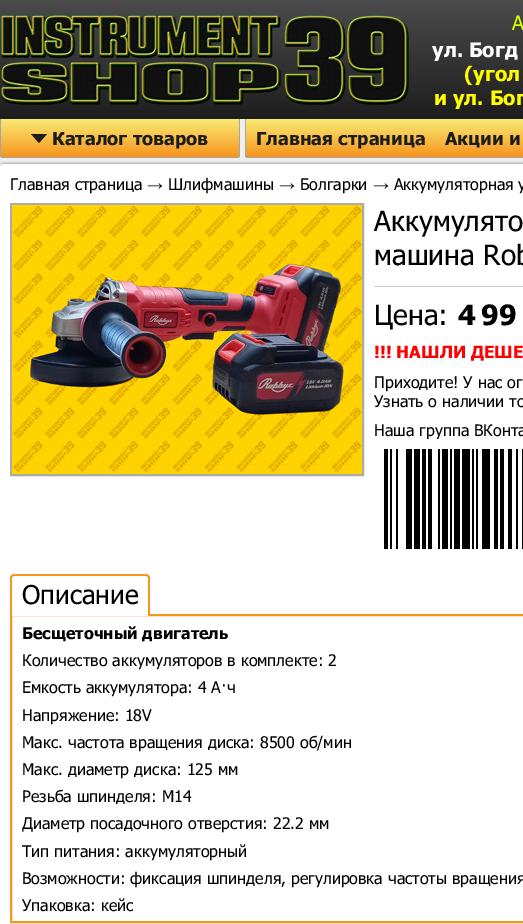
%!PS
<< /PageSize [523 924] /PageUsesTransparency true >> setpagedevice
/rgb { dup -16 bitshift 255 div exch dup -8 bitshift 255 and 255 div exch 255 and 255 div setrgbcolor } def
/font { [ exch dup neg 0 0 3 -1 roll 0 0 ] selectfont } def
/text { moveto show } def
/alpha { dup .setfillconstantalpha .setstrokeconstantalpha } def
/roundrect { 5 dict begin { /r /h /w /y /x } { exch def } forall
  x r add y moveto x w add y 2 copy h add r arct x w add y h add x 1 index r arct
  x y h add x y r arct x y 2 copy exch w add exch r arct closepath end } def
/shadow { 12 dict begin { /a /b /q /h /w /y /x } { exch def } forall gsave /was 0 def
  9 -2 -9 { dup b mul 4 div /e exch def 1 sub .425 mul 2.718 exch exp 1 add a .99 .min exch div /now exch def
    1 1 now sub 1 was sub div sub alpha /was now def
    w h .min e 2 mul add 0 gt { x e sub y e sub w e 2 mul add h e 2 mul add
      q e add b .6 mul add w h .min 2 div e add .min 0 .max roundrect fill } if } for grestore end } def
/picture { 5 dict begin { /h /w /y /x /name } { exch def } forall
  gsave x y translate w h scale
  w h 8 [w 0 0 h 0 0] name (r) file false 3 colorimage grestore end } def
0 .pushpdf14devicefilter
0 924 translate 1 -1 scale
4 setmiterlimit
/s1 { /Tahoma-Regular 20 font 16#DEFF00 rgb } def
/s2 { /Tahoma-Bold 20 font 16#FFFFFF rgb } def
/s3 { /Tahoma-Bold 20 font 16#FFFF00 rgb } def
/s4 { /Tahoma-Bold 18 font 16#1D1D1D rgb } def
/s5 { /Tahoma-Regular 16 font 16#000000 rgb } def
/s6 { /Tahoma-Regular 28 font 16#000000 rgb } def
/s7 { /Tahoma-Bold 28 font 16#000000 rgb } def
/s8 { /Tahoma-Bold 17 font 16#FF0000 rgb } def
/s9 { /Tahoma-Regular 26 font 16#000000 rgb } def
/s10 { /Tahoma-Bold 16 font 16#000000 rgb } def
16#EFEFEF rgb
0 0 523 924 rectfill
gsave 0 0 moveto 523 0 lineto 523 119 lineto 0 119 lineto closepath clip newpath
<< /ShadingType 2 /ColorSpace /DeviceRGB /Coords [500 0 500 119] /Extend [true true] /Function << /FunctionType 2 /Domain [0 1] /C0 [0.294 0.294 0.294] /C1 [0.114 0.114 0.114] /N 1 >> >> shfill grestore
(pic1.raw) 1 15 408 90 picture
s1
(А) 512 30 text
s2
(ул. Богд) 432 57 text
s3
(\(угол) 464 81 text
(и ул. Бог) 434 105 text
gsave
0 119 moveto 240 119 lineto 240 155 lineto 240 156.5 238.5 158 237 158 curveto 3 158 lineto 1.5 158 0 156.5 0 155 curveto closepath clip newpath
gsave 0 119 moveto 240 119 lineto 240 157 lineto 0 157 lineto closepath clip newpath
<< /ShadingType 2 /ColorSpace /DeviceRGB /Coords [120 119 120 157] /Extend [true true] /Function << /FunctionType 2 /Domain [0 1] /C0 [0.976 0.922 0.451] /C1 [0.969 0.58 0.114] /N 1 >> >> shfill grestore
grestore
16#A6A6A6 rgb
0 119 moveto 240 119 lineto 240 155 lineto 240 157 239 158 237 158 curveto 3 158 lineto 1 158 0 157 0 155 curveto closepath 1 119 moveto 239 119 lineto 239 155 lineto 239 156 238 157 237 157 curveto 3 157 lineto 2 157 1 156 1 155 curveto closepath eofill
16#1D1D1D rgb
31 134 moveto 47 134 lineto 39 143 lineto closepath fill
s4
(Каталог товаров) 52 145 text
gsave 245 119 moveto 523 119 lineto 523 157 lineto 245 157 lineto closepath clip newpath
<< /ShadingType 2 /ColorSpace /DeviceRGB /Coords [500 119 500 157] /Extend [true true] /Function << /FunctionType 2 /Domain [0 1] /C0 [0.976 0.922 0.451] /C1 [0.969 0.58 0.114] /N 1 >> >> shfill grestore
16#A6A6A6 rgb
245 119 moveto 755 119 lineto 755 155 lineto 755 157 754 158 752 158 curveto 248 158 lineto 246 158 245 157 245 155 curveto closepath 246 119 moveto 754 119 lineto 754 155 lineto 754 156 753 157 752 157 curveto 248 157 lineto 247 157 246 156 246 155 curveto closepath eofill
s4
(Главная страница) 256 145 text
(Акции и) 445 145 text
16#6D6D6D rgb
0 164 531 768 3 1.5 1 shadow
16#FFFFFF rgb
0 164 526 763 3 roundrect fill
s5
(Главная страница → Шлифмашины → Болгарки → Аккумуляторная у) 10 190 text
16#ABABAB rgb
2 setlinewidth
11 204 352 271 rectstroke
(pic2.raw) 12 205 350 269 picture
16#CCCCCC rgb
374 286 149 1 rectfill
s6
(Аккумулято) 374 231 text
(машина Rob) 374 265 text
(Цена:) 374 325 text
s7
(4 99) 458 325 text
s8
(!!! НАШЛИ ДЕШЕ) 374 358 text
s5
(Приходите! У нас ог) 374 388 text
(Узнать о наличии то) 374 407 text
(Наша группа ВКонта) 374 436 text
(pic3.raw) 384 439 139 110 picture
16#F7951F rgb
11 615 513 307 rectstroke
16#FFFFFF rgb
14 574 moveto 146 574 lineto 148 574 150 576 150 578 curveto 150 616 lineto 10 616 lineto 10 578 lineto 10 576 12 574 14 574 curveto closepath fill
16#F7951F rgb
14 574 moveto 146 574 lineto 148 574 150 576 150 578 curveto 150 616 lineto 10 616 lineto 10 578 lineto 10 576 12 574 14 574 curveto closepath 14 576 moveto 146 576 lineto 147 576 148 577 148 578 curveto 148 616 lineto 12 616 lineto 12 578 lineto 12 577 13 576 14 576 curveto closepath eofill
s9
(Описание) 22 604 text
s10
(Бесщеточный двигатель) 22 639 text
s5
(Количество аккумуляторов в комплекте: 2) 22 666 text
(Емкость аккумулятора: 4 А·ч) 22 693 text
(Напряжение: 18V) 22 721 text
(Макс. частота вращения диска: 8500 об/мин) 22 748 text
(Макс. диаметр диска: 125 мм) 22 775 text
(Резьба шпинделя: M14) 22 802 text
(Диаметр посадочного отверстия: 22.2 мм) 22 829 text
(Тип питания: аккумуляторный) 22 857 text
(Возможности: фиксация шпинделя, регулировка частоты вращения) 22 884 text
(Упаковка: кейс) 22 911 text
.poppdf14devicefilter showpage
